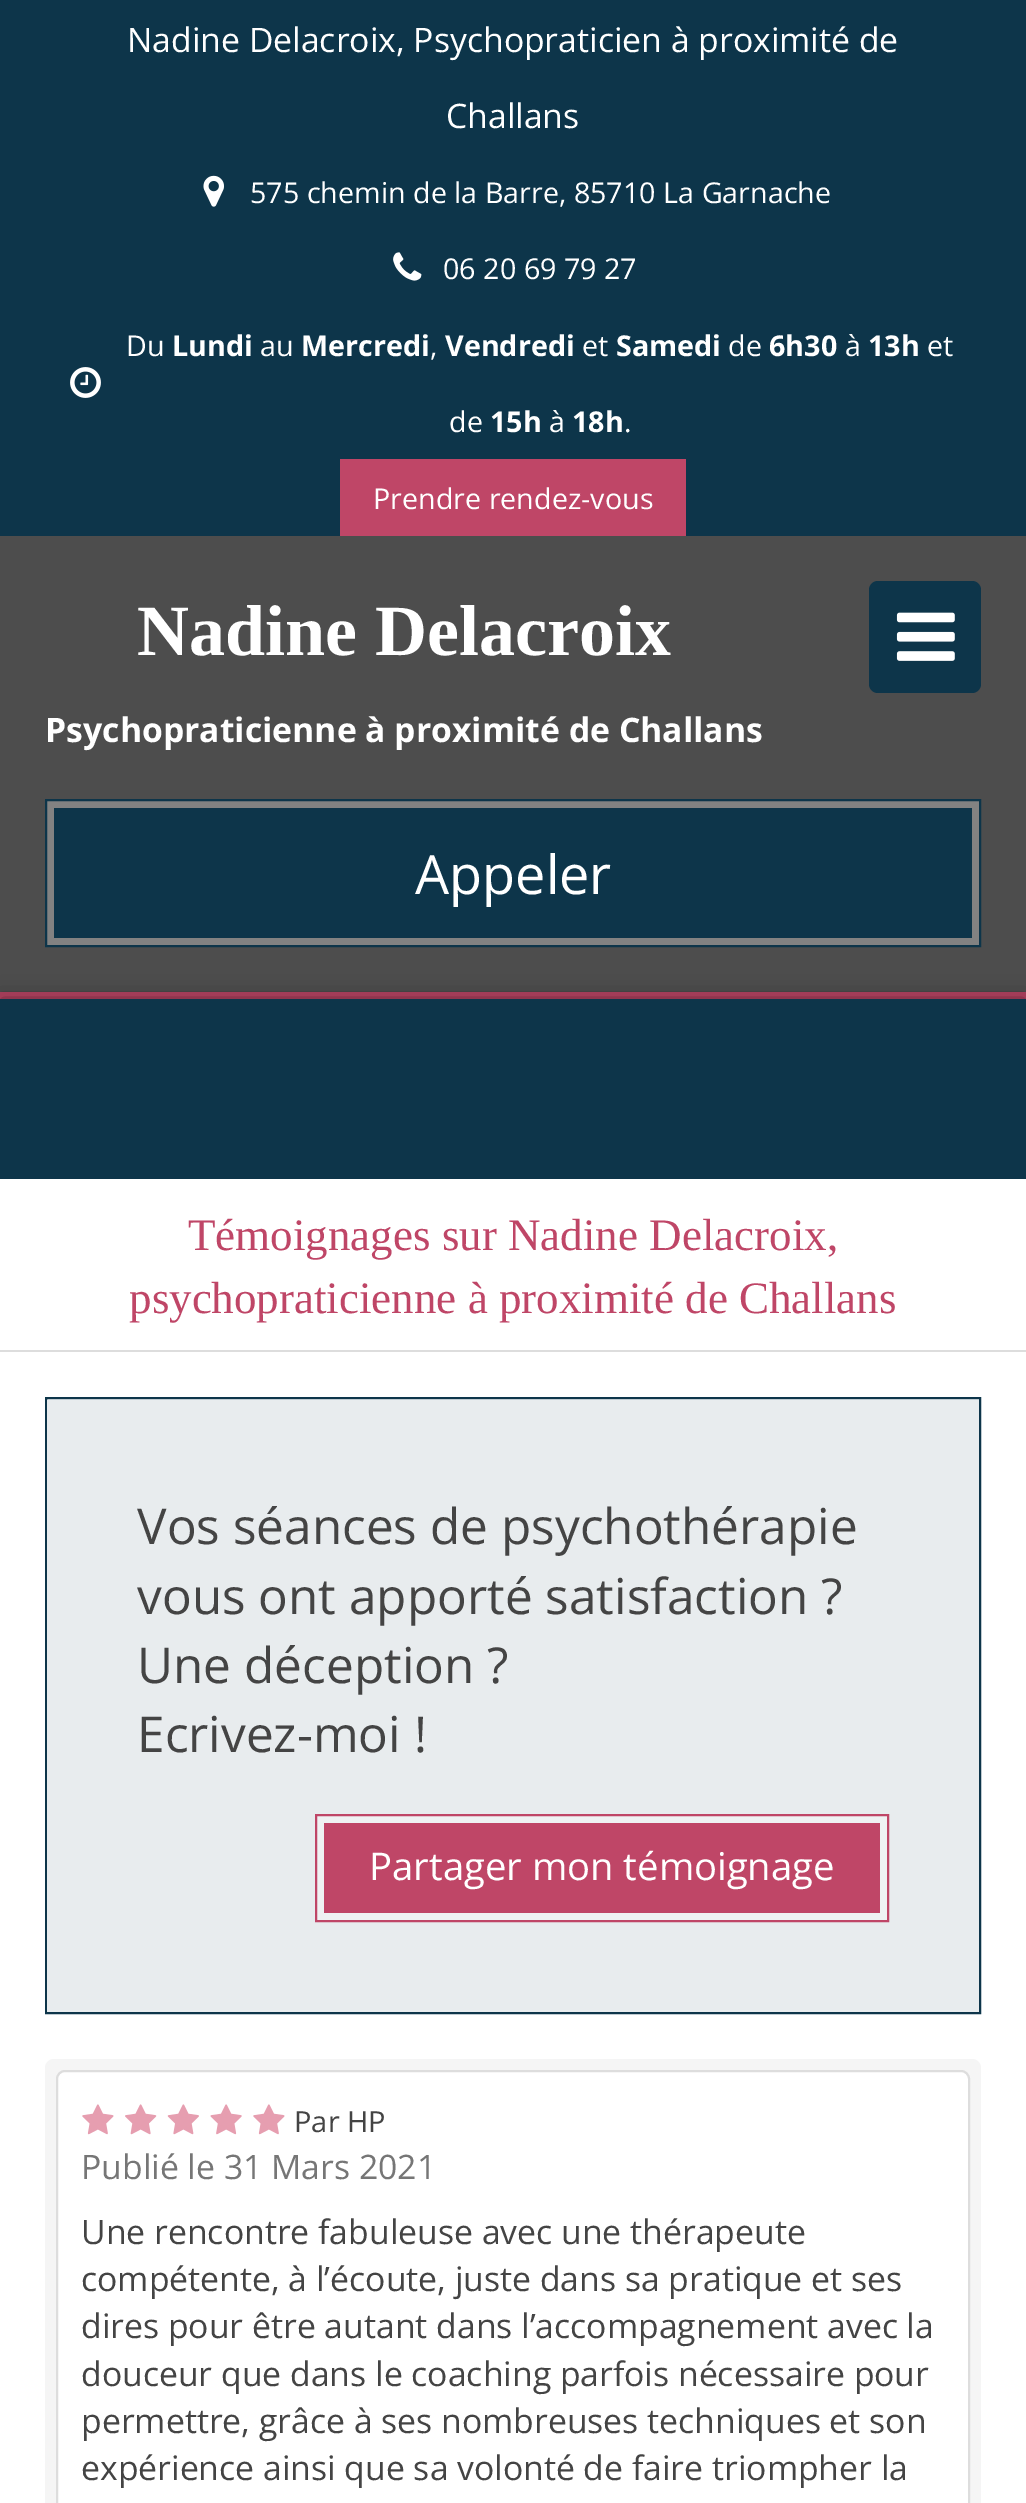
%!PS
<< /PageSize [1026 2503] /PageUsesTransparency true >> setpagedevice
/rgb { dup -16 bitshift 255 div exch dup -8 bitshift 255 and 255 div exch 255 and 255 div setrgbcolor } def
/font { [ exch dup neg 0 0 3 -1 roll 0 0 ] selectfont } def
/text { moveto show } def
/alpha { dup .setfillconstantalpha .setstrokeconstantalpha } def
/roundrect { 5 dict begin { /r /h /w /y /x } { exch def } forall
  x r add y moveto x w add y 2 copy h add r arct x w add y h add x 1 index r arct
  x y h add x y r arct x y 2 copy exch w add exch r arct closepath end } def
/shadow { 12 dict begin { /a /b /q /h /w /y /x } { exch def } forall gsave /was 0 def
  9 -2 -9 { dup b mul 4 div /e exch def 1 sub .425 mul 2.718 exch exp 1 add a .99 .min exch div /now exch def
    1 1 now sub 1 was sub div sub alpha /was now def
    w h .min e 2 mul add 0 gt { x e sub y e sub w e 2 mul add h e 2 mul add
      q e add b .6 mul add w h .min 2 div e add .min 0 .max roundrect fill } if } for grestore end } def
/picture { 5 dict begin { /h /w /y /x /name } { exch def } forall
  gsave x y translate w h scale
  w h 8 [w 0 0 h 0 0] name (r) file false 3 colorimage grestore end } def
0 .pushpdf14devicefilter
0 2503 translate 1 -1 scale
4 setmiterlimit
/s1 { /OpenSans-Regular 33.75 font 16#FFFFFF rgb } def
/s2 { /OpenSans-Regular 28.7 font 16#FFFFFF rgb } def
/s3 { /OpenSans-Bold 28.7 font 16#FFFFFF rgb } def
/s4 { /LiberationSerif-Bold 72 font 16#FFFFFF rgb } def
/s5 { /OpenSans-Bold 33.75 font 16#FFFFFF rgb } def
/s6 { /OpenSans-Regular 54 font 16#FFFFFF rgb } def
/s7 { /LiberationSerif-Regular 45 font 16#BF4667 rgb } def
/s8 { /OpenSans-Regular 49.5 font 16#444444 rgb } def
/s9 { /OpenSans-Regular 38.25 font 16#FFFFFF rgb } def
/s10 { /OpenSans-Regular 29 font 16#444444 rgb } def
/s11 { /OpenSans-Regular 33.75 font 16#767676 rgb } def
/s12 { /OpenSans-Regular 33.75 font 16#444444 rgb } def
16#0D354A rgb
0 0 1026 2503 rectfill
s1
(Nadine Delacroix, Psychopraticien à proximité de) 127 52 text
(Challans) 446 128 text
(pic1.raw) 203 175 21 32 picture
s2
(575 chemin de la Barre, 85710 La Garnache) 250 203 text
(pic2.raw) 393 252 29 29 picture
(06 20 69 79 27) 443 279 text
(pic3.raw) 70 367 31 31 picture
(Du) 126 356 text
s3
(Lundi) 172 356 text
s2
(au) 260 356 text
s3
(Mercredi) 301 356 text
s2
(,) 430 356 text
s3
(Vendredi) 445 356 text
s2
(et) 582 356 text
s3
(Samedi) 616 356 text
s2
(de) 728 356 text
s3
(6h30) 769 356 text
s2
(à) 845 356 text
s3
(13h) 868 356 text
s2
(et) 927 356 text
(de) 449 432 text
s3
(15h) 490 432 text
s2
(à) 549 432 text
s3
(18h) 572 432 text
s2
(.) 624 432 text
16#BF4667 rgb
340 459 346 77 rectfill
s2
(Prendre rendez-vous) 373 509 text
16#4D4D4D rgb
0 536 1026 456 rectfill
16#BF4667 rgb
0 992 1026 7 rectfill
s4
(Nadine Delacroix) 137 655 text
s5
(Psychopraticienne à proximité de Challans) 45 742 text
16#0D354A rgb
869 581 112 112 9 roundrect fill
(pic4.raw) 896 612 59 49 picture
16#828282 rgb
46 800 moveto 980 800 lineto 980 946 lineto 46 946 lineto closepath gsave fill grestore
16#0D354A rgb
2 setlinewidth
stroke
54 808 918 130 rectfill
s6
(Appeler) 415 894 text
16#000000 rgb
0 999 1026 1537 0 11 0.5 shadow
16#0D354A rgb
0 999 1026 180 rectfill
16#FFFFFF rgb
0 1179 1026 1324 rectfill
16#DDDDDD rgb
0 1350 1026 2 rectfill
s7
(Témoignages sur Nadine Delacroix,) 188 1250 text
(psychopraticienne à proximité de Challans) 129 1313 text
16#0D354A rgb
46 1398 934 615 rectstroke
16#E8ECEE rgb
47 1400 932 612 rectfill
s8
(Vos séances de psychothérapie) 137 1544 text
(vous ont apporté satisfaction ?) 137 1614 text
(Une déception ?) 137 1683 text
(Ecrivez-moi !) 137 1752 text
16#EFF2F3 rgb
316 1815 moveto 888 1815 lineto 888 1921 lineto 316 1921 lineto closepath gsave fill grestore
16#BF4667 rgb
stroke
324 1823 556 90 rectfill
s9
(Partager mon témoignage) 369 1880 text
16#F5F5F5 rgb
45 2059 936 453 9 roundrect fill
16#FFFFFF rgb
57 2071 912 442 8 roundrect gsave fill grestore
16#DDDDDD rgb
stroke
(pic5.raw) 82 2104 32 31 picture
(pic6.raw) 125 2104 32 31 picture
(pic7.raw) 167 2104 32 31 picture
(pic8.raw) 210 2104 32 31 picture
(pic5.raw) 253 2104 32 31 picture
s10
(Par HP) 294 2132 text
s11
(Publié le 31 Mars 2021) 81 2179 text
s12
(Une rencontre fabuleuse avec une thérapeute) 81 2244 text
(compétente, à l’écoute, juste dans sa pratique et ses) 81 2291 text
(dires pour être autant dans l’accompagnement avec la) 81 2338 text
(douceur que dans le coaching parfois nécessaire pour) 81 2386 text
(permettre, grâce à ses nombreuses techniques et son) 81 2433 text
(expérience ainsi que sa volonté de faire triompher la) 81 2480 text
.poppdf14devicefilter showpage
